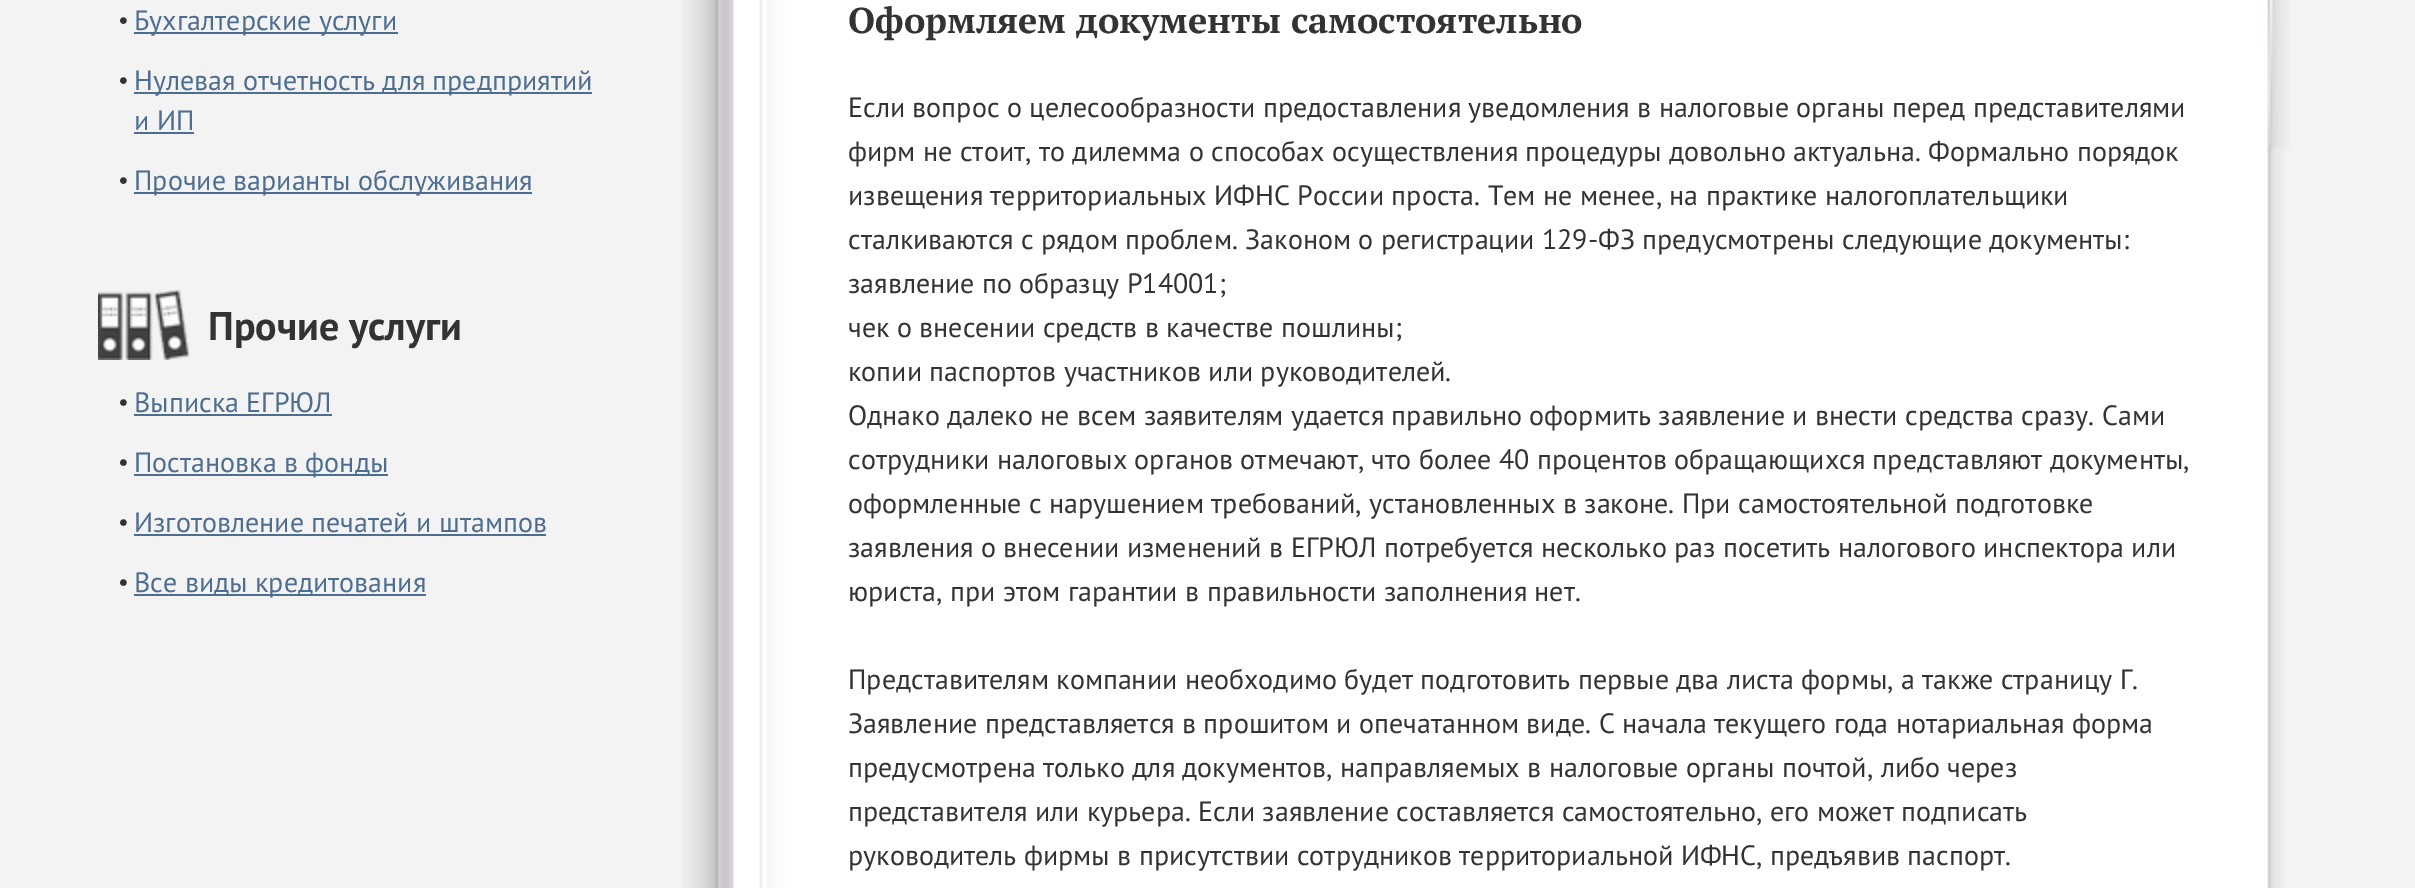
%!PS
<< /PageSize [2415 888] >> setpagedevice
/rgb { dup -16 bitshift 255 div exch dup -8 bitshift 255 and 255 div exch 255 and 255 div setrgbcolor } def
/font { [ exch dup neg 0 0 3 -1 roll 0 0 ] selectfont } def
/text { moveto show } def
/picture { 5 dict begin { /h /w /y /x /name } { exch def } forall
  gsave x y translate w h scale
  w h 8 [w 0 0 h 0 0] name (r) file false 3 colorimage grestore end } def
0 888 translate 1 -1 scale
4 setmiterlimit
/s1 { /PTSans-Regular 24 font 16#333333 rgb } def
/s2 { /PTSans-Regular 28 font 16#4D6E90 rgb } def
/s3 { /PTSans-Bold 40 font 16#333333 rgb } def
/s4 { /PTSerif-Bold 36 font 16#333333 rgb } def
/s5 { /PTSans-Regular 28 font 16#333333 rgb } def
16#F3F3F3 rgb
0 0 2415 888 rectfill
s1
(•) 118 28 text
16#4D6E90 rgb
134 32 264 2 rectfill
s2
(Бухгалтерские услуги) 134 30 text
s1
(•) 118 88 text
16#4D6E90 rgb
134 92 458 2 rectfill
s2
(Нулевая отчетность для предприятий) 134 90 text
(и ИП) 134 130 text
134 132 60 2 rectfill
s1
(•) 118 188 text
16#4D6E90 rgb
134 192 398 2 rectfill
s2
(Прочие варианты обслуживания) 134 190 text
(pic1.raw) 98 290 92 70 picture
s3
(Прочие услуги) 208 340 text
s1
(•) 118 410 text
s2
(Выписка ЕГРЮЛ) 134 412 text
134 414 198 2 rectfill
s1
(•) 118 470 text
16#4D6E90 rgb
134 474 254 2 rectfill
s2
(Постановка в фонды) 134 472 text
s1
(•) 118 530 text
s2
(Изготовление печатей и штампов) 134 532 text
134 534 412 2 rectfill
s1
(•) 118 590 text
16#4D6E90 rgb
134 594 292 2 rectfill
s2
(Все виды кредитования) 134 592 text
(pic2.raw) 682 0 1603 888 picture
s4
(Оформляем документы самостоятельно) 848 33 text
s5
(Если вопрос о целесообразности предоставления уведомления в налоговые органы перед представителями) 848 117 text
(фирм не стоит, то дилемма о способах осуществления процедуры довольно актуальна. Формально порядок) 848 161 text
(извещения территориальных ИФНС России проста. Тем не менее, на практике налогоплательщики) 848 205 text
(сталкиваются с рядом проблем. Законом о регистрации 129-ФЗ предусмотрены следующие документы:) 848 249 text
(заявление по образцу Р14001;) 848 293 text
(чек о внесении средств в качестве пошлины;) 848 337 text
(копии паспортов участников или руководителей.) 848 381 text
(Однако далеко не всем заявителям удается правильно оформить заявление и внести средства сразу. Сами) 848 425 text
(сотрудники налоговых органов отмечают, что более 40 процентов обращающихся представляют документы,) 848 469 text
(оформленные с нарушением требований, установленных в законе. При самостоятельной подготовке) 848 513 text
(заявления о внесении изменений в ЕГРЮЛ потребуется несколько раз посетить налогового инспектора или) 848 557 text
(юриста, при этом гарантии в правильности заполнения нет.) 848 601 text
(Представителям компании необходимо будет подготовить первые два листа формы, а также страницу Г.) 848 689 text
(Заявление представляется в прошитом и опечатанном виде. С начала текущего года нотариальная форма) 848 733 text
(предусмотрена только для документов, направляемых в налоговые органы почтой, либо через) 848 777 text
(представителя или курьера. Если заявление составляется самостоятельно, его может подписать) 848 821 text
(руководитель фирмы в присутствии сотрудников территориальной ИФНС, предъявив паспорт.) 848 865 text
(pic3.raw) 2268 0 22 150 picture
showpage
